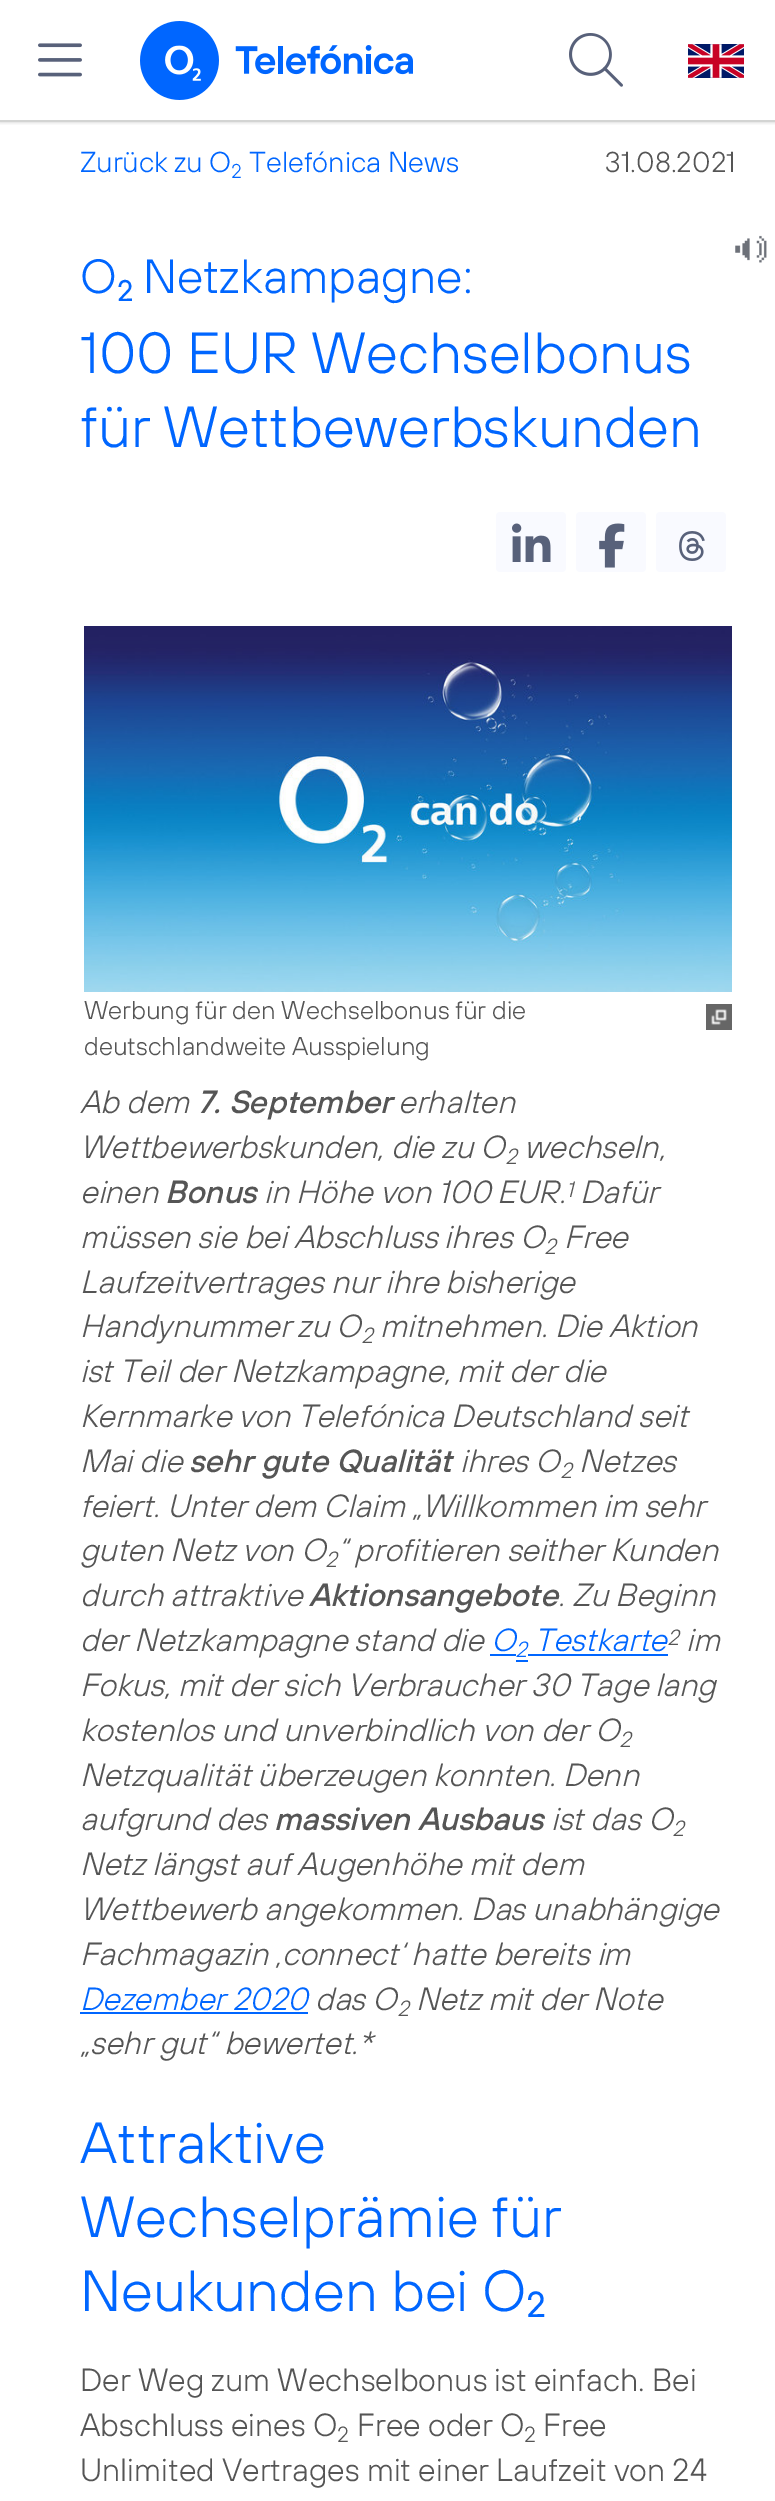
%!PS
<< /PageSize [775 2501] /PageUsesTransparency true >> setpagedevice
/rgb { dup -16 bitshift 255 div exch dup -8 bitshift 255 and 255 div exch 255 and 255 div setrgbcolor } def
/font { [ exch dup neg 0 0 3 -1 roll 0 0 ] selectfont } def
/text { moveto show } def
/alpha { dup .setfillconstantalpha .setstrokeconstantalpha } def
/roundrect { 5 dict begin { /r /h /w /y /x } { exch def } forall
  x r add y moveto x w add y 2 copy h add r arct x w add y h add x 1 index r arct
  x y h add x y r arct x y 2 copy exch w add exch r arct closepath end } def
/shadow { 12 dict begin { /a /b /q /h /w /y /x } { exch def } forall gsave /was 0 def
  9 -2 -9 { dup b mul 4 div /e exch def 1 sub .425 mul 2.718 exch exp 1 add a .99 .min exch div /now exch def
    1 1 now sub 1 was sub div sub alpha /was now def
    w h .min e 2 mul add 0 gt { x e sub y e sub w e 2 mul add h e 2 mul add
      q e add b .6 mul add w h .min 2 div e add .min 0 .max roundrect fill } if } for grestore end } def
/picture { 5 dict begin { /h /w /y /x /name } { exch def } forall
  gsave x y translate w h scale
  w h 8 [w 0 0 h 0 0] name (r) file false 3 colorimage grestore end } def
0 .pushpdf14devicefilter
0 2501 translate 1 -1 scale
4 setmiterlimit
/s1 { /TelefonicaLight-Light 28.75 font 16#0066FF rgb } def
/s2 { /TelefonicaLight-Light 20 font 16#0066FF rgb } def
/s3 { /TelefonicaLight-Light 28.75 font 16#555555 rgb } def
/s4 { /TelefonicaLight-Light 48 font 16#0066FF rgb } def
/s5 { /TelefonicaLight-Bold 28.75 font 16#0066FF rgb } def
/s6 { /TelefonicaLight-Light 58 font 16#0066FF rgb } def
/s7 { /TelefonicaLight-Light 25.6 font 16#555555 rgb } def
/s8 { /TelefonicaLight-LightItalic 32 font 16#555555 rgb } def
/s9 { /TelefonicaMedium-MediumItalic 32 font 16#555555 rgb } def
/s10 { /TelefonicaLight-LightItalic 22 font 16#555555 rgb } def
/s11 { /TelefonicaLight-LightItalic 32 font 16#0066FF rgb } def
/s12 { /TelefonicaLight-LightItalic 22 font 16#0066FF rgb } def
/s13 { /TelefonicaLight-Bold 35 font 16#0066FF rgb } def
/s14 { /TelefonicaLight-Light 32 font 16#555555 rgb } def
/s15 { /TelefonicaLight-Light 22 font 16#555555 rgb } def
16#FFFFFF rgb
0 0 775 2501 rectfill
gsave
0 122 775 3 rectclip
16#000000 rgb
0 0 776 122 0 2 0.2 shadow
grestore
16#D3D4D3 rgb
0 120 775 2 rectfill
(pic1.raw) 38 43 44 34 picture
(pic2.raw) 140 21 273 79 picture
(pic3.raw) 569 33 54 54 picture
(pic4.raw) 688 44 56 34 picture
s1
(Zurück zu O) 80 172 text
s2
(2) 231 178 text
s1
(Telefónica News) 249 172 text
s3
(31.08.2021) 605 172 text
(pic5.raw) 735 235 32 28 picture
s4
(O) 80 293 text
s5
(2) 117 301 text
s4
(Netzkampagne:) 143 293 text
s6
(100 EUR Wechselbonus) 80 373 text
(für Wettbewerbskunden) 80 447 text
16#F9FAFF rgb
496 512 70 60 4 roundrect fill
(pic6.raw) 512 523 39 39 picture
576 512 70 60 4 roundrect fill
(pic7.raw) 599 523 26 45 picture
656 512 70 60 4 roundrect fill
(pic8.raw) 679 531 26 30 picture
(pic9.raw) 84 626 648 366 picture
s7
(Werbung für den Wechselbonus für die) 84 1019 text
(deutschlandweite Ausspielung) 84 1055 text
(pic10.raw) 706 1004 26 26 picture
s8
(Ab dem) 80 1113 text
s9
(7. September) 197 1113 text
s8
(erhalten) 398 1113 text
(Wettbewerbskunden, die zu O) 80 1158 text
s10
(2) 505 1164 text
s8
(wechseln,) 524 1158 text
(einen) 80 1203 text
s9
(Bonus) 165 1203 text
s8
(in Höhe von 100 EUR.) 264 1203 text
s10
(1) 566 1197 text
s8
(Dafür) 580 1203 text
(müssen sie bei Abschluss ihres O) 80 1248 text
s10
(2) 544 1254 text
s8
(Free) 564 1248 text
(Laufzeitvertrages nur ihre bisherige) 80 1293 text
(Handynummer zu O) 80 1337 text
s10
(2) 361 1343 text
s8
(mitnehmen. Die Aktion) 380 1337 text
(ist Teil der Netzkampagne, mit der die) 80 1382 text
(Kernmarke von Telefónica Deutschland seit) 80 1427 text
(Mai die) 80 1472 text
s9
(sehr gute Qualität) 189 1472 text
s8
(ihres O) 460 1472 text
s10
(2) 560 1478 text
s8
(Netzes) 579 1472 text
(feiert. Unter dem Claim „Willkommen im sehr) 80 1517 text
(guten Netz von O) 80 1561 text
s10
(2) 325 1567 text
s8
(“ profitieren seither Kunden) 337 1561 text
(durch attraktive) 80 1606 text
s9
(Aktionsangebote) 309 1606 text
s8
(. Zu Beginn) 558 1606 text
(der Netzkampagne stand die) 80 1651 text
s11
(O) 491 1651 text
(Testkarte) 534 1651 text
s10
(2) 667 1645 text
s8
(im) 686 1651 text
16#0066FF rgb
528 1654 140 2 rectfill
s12
(2) 515 1657 text
490 1654 26 2 rectfill
516 1660 12 2 rectfill
s8
(Fokus, mit der sich Verbraucher 30 Tage lang) 80 1696 text
(kostenlos und unverbindlich von der O) 80 1741 text
s10
(2) 619 1747 text
s8
(Netzqualität überzeugen konnten. Denn) 80 1786 text
(aufgrund des) 80 1830 text
s9
(massiven Ausbaus) 274 1830 text
s8
(ist das O) 551 1830 text
s10
(2) 672 1836 text
s8
(Netz längst auf Augenhöhe mit dem) 80 1875 text
(Wettbewerb angekommen. Das unabhängige) 80 1920 text
(Fachmagazin ‚connect‘ hatte bereits im) 80 1965 text
s11
(Dezember 2020) 80 2010 text
80 2012 228 2 rectfill
s8
(das O) 315 2010 text
s10
(2) 397 2016 text
s8
(Netz mit der Note) 416 2010 text
(„sehr gut“ bewertet.*) 80 2054 text
s6
(Attraktive) 80 2163 text
(Wechselprämie für) 80 2237 text
(Neukunden bei O) 80 2311 text
s13
(2) 526 2317 text
s14
(Der Weg zum Wechselbonus ist einfach. Bei) 80 2391 text
(Abschluss eines O) 80 2436 text
s15
(2) 337 2442 text
s14
(Free oder O) 357 2436 text
s15
(2) 524 2442 text
s14
(Free) 543 2436 text
(Unlimited Vertrages mit einer Laufzeit von 24) 80 2481 text
.poppdf14devicefilter showpage
